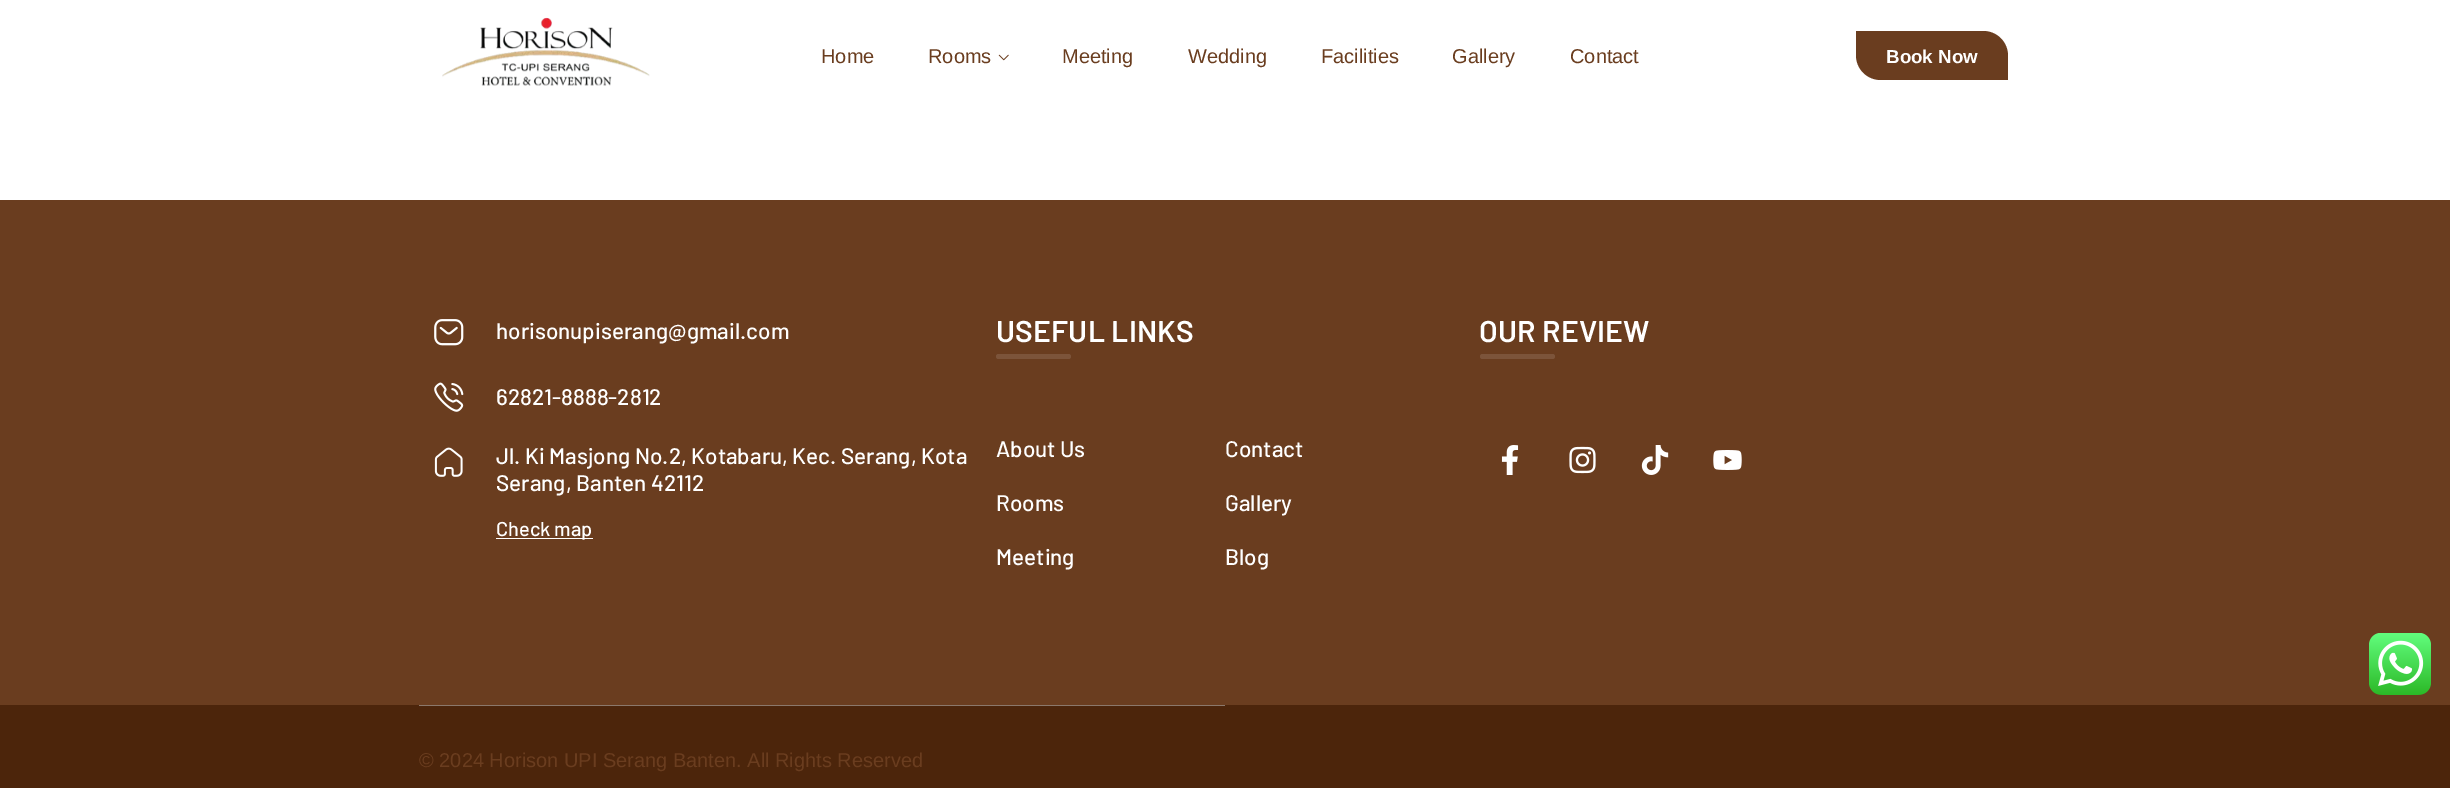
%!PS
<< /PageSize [2450 788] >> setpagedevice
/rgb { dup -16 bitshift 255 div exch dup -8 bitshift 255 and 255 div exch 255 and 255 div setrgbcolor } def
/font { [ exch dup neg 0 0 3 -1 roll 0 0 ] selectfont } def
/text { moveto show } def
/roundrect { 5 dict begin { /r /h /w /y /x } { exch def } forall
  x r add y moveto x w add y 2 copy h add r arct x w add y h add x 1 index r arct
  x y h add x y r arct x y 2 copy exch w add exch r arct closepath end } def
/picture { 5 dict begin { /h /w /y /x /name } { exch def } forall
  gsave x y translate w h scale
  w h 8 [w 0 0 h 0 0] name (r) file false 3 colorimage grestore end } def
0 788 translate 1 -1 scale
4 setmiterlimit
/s1 { /LiberationSans-Regular 20 font 16#6A3D1F rgb } def
/s2 { /LiberationSans-Bold 18.75 font 16#FFFFFF rgb } def
/s3 { /Barlow-Medium 22.5 font 16#FFFFFF rgb } def
/s4 { /Barlow-Medium 20 font 16#FFFFFF rgb } def
16#FFFFFF rgb
0 0 2450 788 rectfill
(pic1.raw) 442 17 208 69 picture
s1
(Home) 821 63 text
(Rooms) 928 63 text
(pic2.raw) 998 54 11 7 picture
(Meeting) 1062 63 text
(Wedding) 1188 63 text
(Facilities) 1321 63 text
(Gallery) 1452 63 text
(Contact) 1570 63 text
1856 31 moveto 1983 31 lineto 1997 31 2008 42 2008 56 curveto 2008 80 lineto 1881 80 lineto 1867 80 1856 69 1856 55 curveto closepath fill
s2
(Book Now) 1886 63 text
16#6A3D1F rgb
0 200 2450 505 rectfill
(pic3.raw) 434 319 30 27 picture
s3
(horisonupiserang@gmail.com) 496 339 text
(pic4.raw) 434 382 30 30 picture
(62821-8888-2812) 496 405 text
(pic5.raw) 434 447 29 30 picture
(Jl. Ki Masjong No.2, Kotabaru, Kec. Serang, Kota) 496 464 text
(Serang, Banten 42112) 496 491 text
496 538 97 1 rectfill
s4
(Check map) 496 536 text
/Barlow-SemiBold 30 font
996 342 moveto 0.25 0 (USEFUL LINKS) ashow
16#7C543A rgb
996 354 75 5 2.5 roundrect fill
s3
(About Us) 996 457 text
(Rooms) 996 511 text
(Meeting) 996 565 text
(Contact) 1225 457 text
(Gallery) 1225 511 text
(Blog) 1225 565 text
/Barlow-SemiBold 30 font
1479 342 moveto 0.25 0 (OUR REVIEW) ashow
16#7C543A rgb
1480 354 75 5 2.5 roundrect fill
(pic6.raw) 1501 445 18 30 picture
(pic7.raw) 1569 446 27 28 picture
(pic8.raw) 1641 445 28 30 picture
(pic9.raw) 1713 450 29 20 picture
16#4C250B rgb
0 705 2450 83 rectfill
16#8B786B rgb
419 705 806 1 rectfill
s1
(© 2024 Horison UPI Serang Banten. All Rights Reserved) 419 767 text
(pic10.raw) 2369 633 62 62 picture
showpage
